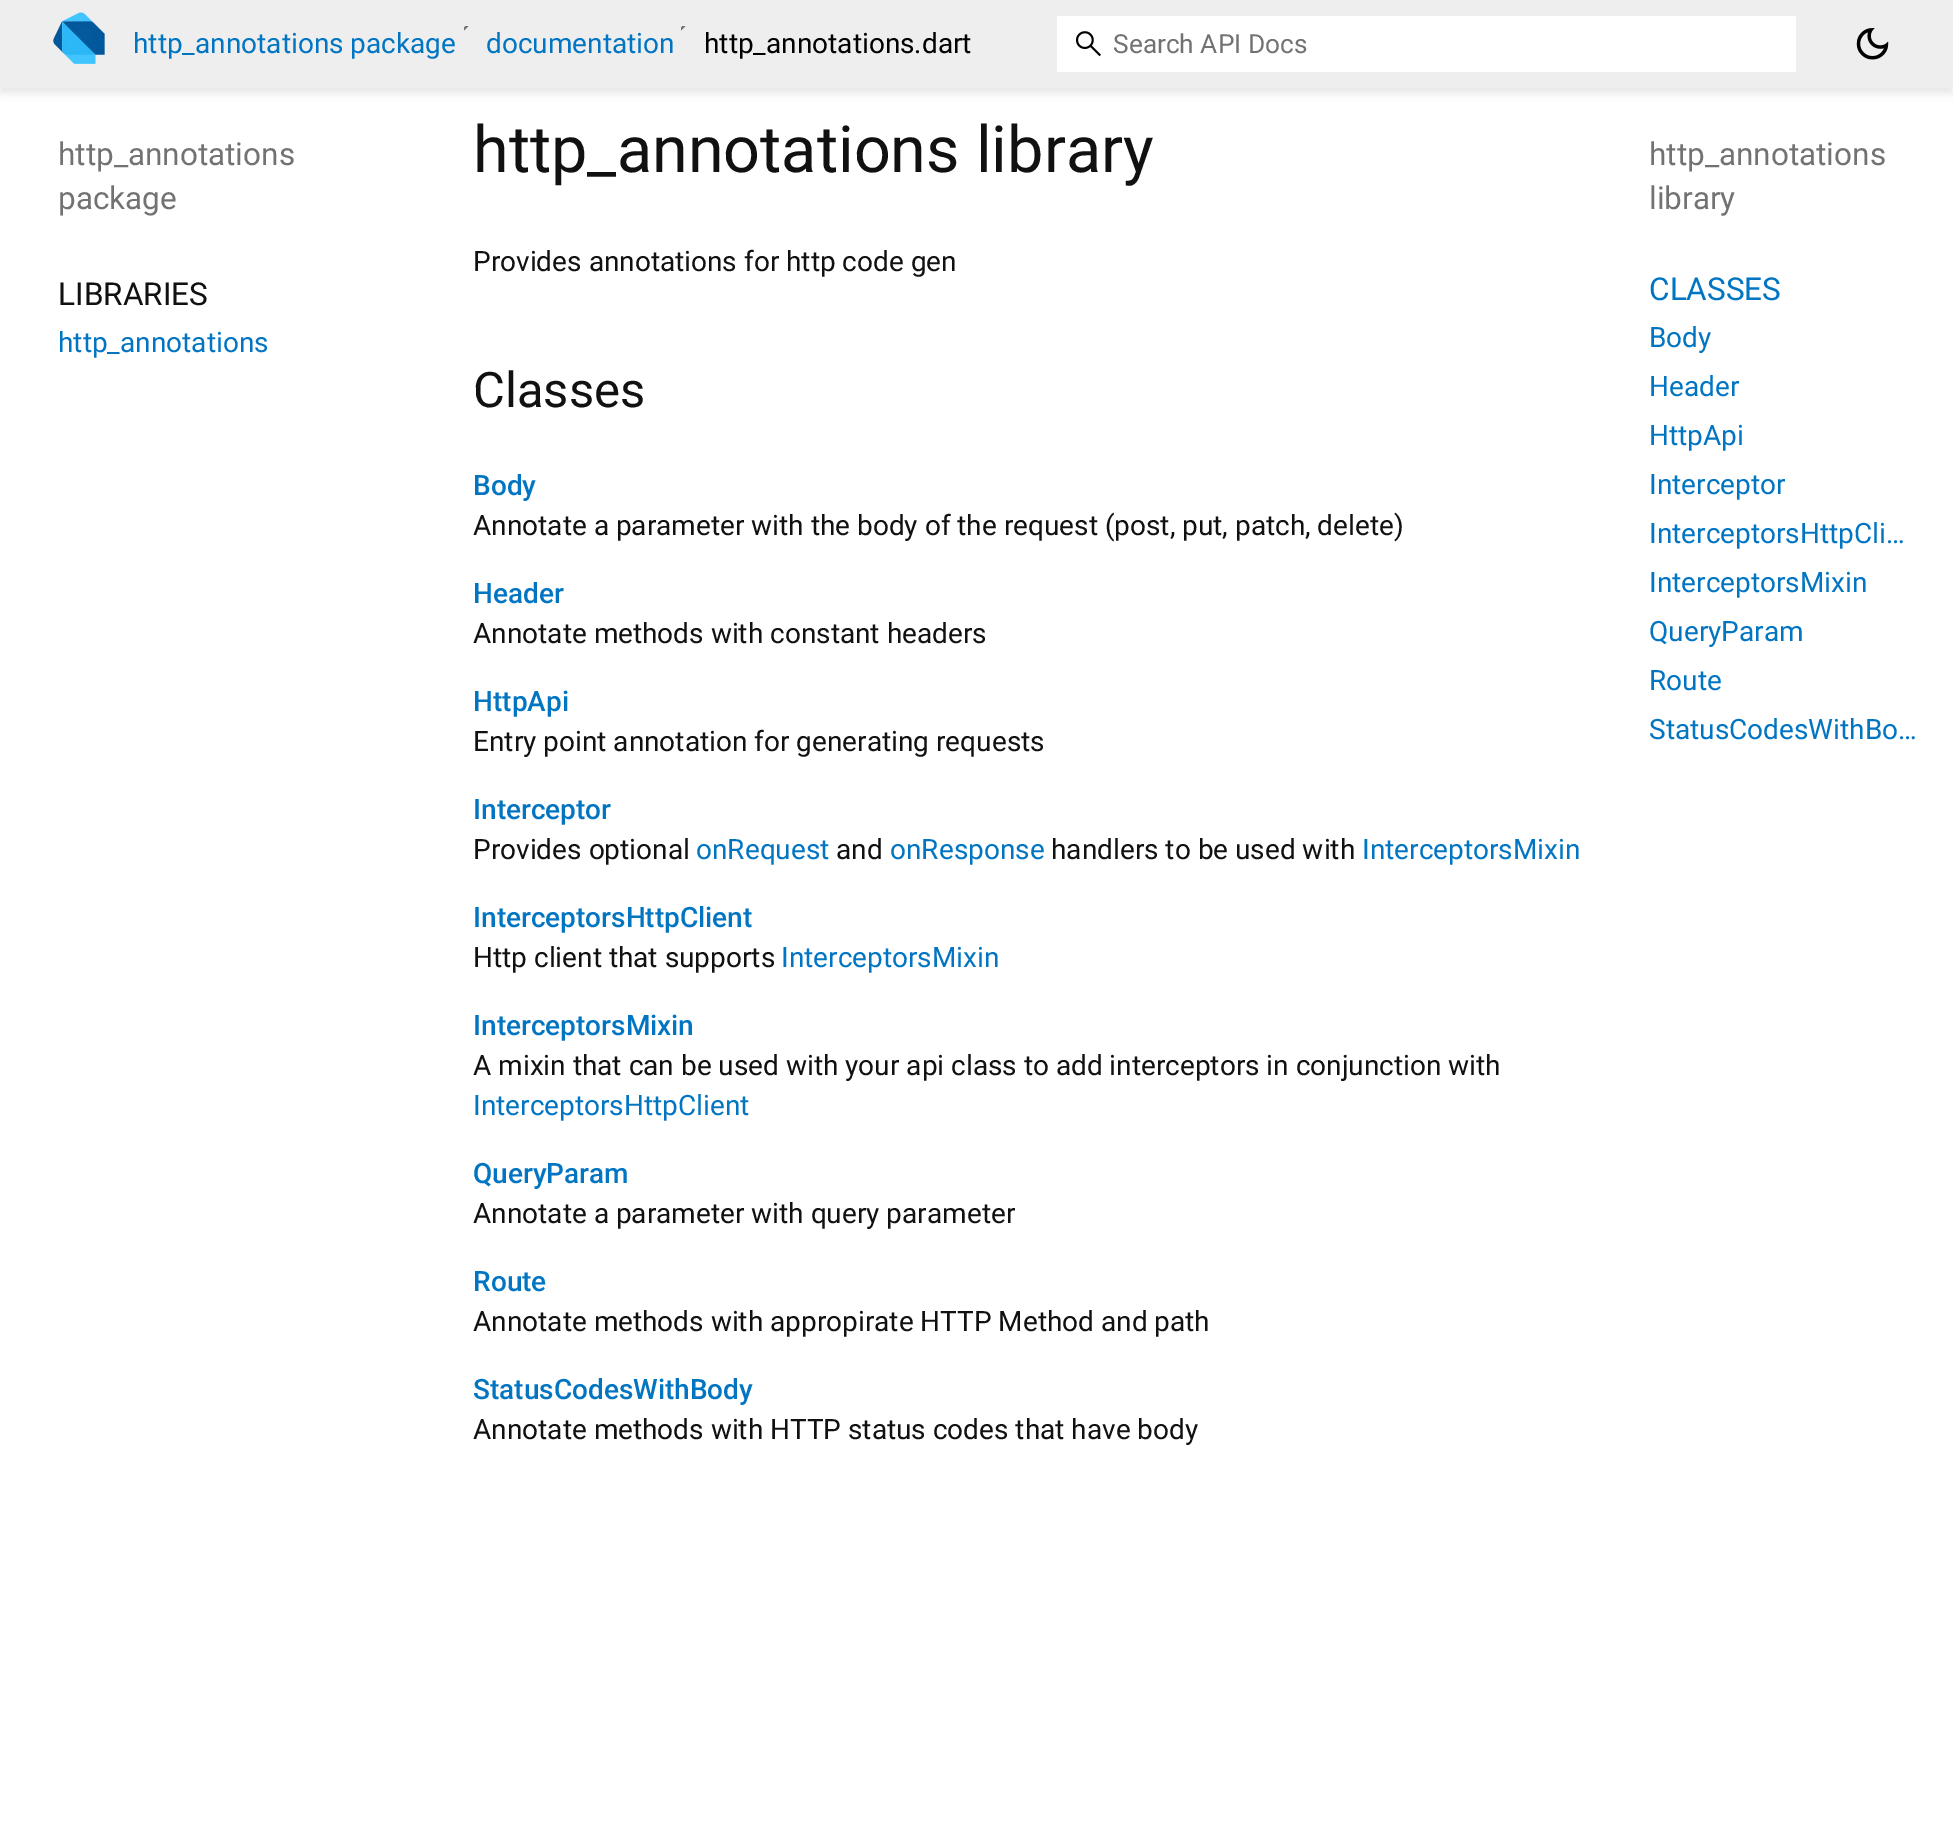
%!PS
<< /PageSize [1953 1824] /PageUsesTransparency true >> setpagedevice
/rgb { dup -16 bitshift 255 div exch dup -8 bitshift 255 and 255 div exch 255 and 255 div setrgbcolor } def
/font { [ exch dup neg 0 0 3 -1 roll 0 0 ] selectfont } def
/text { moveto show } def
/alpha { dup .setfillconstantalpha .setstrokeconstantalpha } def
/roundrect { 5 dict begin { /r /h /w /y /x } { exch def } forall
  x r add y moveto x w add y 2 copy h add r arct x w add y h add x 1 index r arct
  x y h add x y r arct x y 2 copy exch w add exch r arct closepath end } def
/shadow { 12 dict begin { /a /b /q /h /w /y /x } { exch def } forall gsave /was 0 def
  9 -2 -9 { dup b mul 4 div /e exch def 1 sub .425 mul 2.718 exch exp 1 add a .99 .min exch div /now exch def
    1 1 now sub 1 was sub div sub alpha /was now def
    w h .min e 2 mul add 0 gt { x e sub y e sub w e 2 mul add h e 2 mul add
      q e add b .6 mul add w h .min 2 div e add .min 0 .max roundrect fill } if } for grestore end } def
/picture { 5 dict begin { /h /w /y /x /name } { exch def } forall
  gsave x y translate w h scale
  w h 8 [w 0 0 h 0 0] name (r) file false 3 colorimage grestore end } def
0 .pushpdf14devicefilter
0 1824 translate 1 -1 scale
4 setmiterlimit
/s1 { /Roboto-Regular 28 font 16#0175C2 rgb } def
/s2 { /Roboto-Regular 28 font 16#000000 rgb } def
/s3 { /Roboto-Regular 26.25 font 16#727272 rgb } def
/s4 { /Roboto-Regular 31.5 font 16#727272 rgb } def
/s5 { /Roboto-Regular 31.5 font 16#111111 rgb } def
/s6 { /Roboto-Regular 64.75 font 16#111111 rgb } def
/s7 { /Roboto-Regular 28 font 16#111111 rgb } def
/s8 { /Roboto-Regular 49 font 16#111111 rgb } def
/s9 { /Roboto-Medium 28 font 16#0175C2 rgb } def
/s10 { /Roboto-Regular 31.5 font 16#0175C2 rgb } def
16#FFFFFF rgb
0 0 1953 1824 rectfill
16#000000 rgb
0 5 1953 88 0 4.5 0.1 shadow
16#EEEEEE rgb
0 0 1953 88 rectfill
(pic1.raw) 53 12 52 52 picture
s1
(http_annotations package) 133 53 text
(pic2.raw) 464 26 5 5 picture
(documentation) 486 53 text
(pic2.raw) 681 26 5 5 picture
s2
(http_annotations.dart) 704 53 text
16#FFFFFF rgb
1057 16 739 56 rectfill
(pic3.raw) 1076 31 25 26 picture
s3
(Search API Docs) 1113 53 text
(pic4.raw) 1856 28 33 32 picture
s4
(http_annotations) 58 165 text
(package) 58 209 text
s5
(LIBRARIES) 58 305 text
s1
(http_annotations) 58 352 text
s6
(http_annotations library) 473 172 text
s7
(Provides annotations for http code gen) 473 271 text
s8
(Classes) 473 407 text
s9
(Body) 473 495 text
s7
(Annotate a parameter with the body of the request \(post, put, patch, delete\)) 473 535 text
s9
(Header) 473 603 text
s7
(Annotate methods with constant headers) 473 643 text
s9
(HttpApi) 473 711 text
s7
(Entry point annotation for generating requests) 473 751 text
s9
(Interceptor) 473 819 text
s7
(Provides optional) 473 859 text
s1
(onRequest) 696 859 text
s7
(and) 836 859 text
s1
(onResponse) 890 859 text
s7
(handlers to be used with) 1051 859 text
s1
(InterceptorsMixin) 1362 859 text
s9
(InterceptorsHttpClient) 473 927 text
s7
(Http client that supports) 473 967 text
s1
(InterceptorsMixin) 781 967 text
s9
(InterceptorsMixin) 473 1035 text
s7
(A mixin that can be used with your api class to add interceptors in conjunction with) 473 1075 text
s1
(InterceptorsHttpClient) 473 1115 text
s9
(QueryParam) 473 1183 text
s7
(Annotate a parameter with query parameter) 473 1223 text
s9
(Route) 473 1291 text
s7
(Annotate methods with appropirate HTTP Method and path) 473 1331 text
s9
(StatusCodesWithBody) 473 1399 text
s7
(Annotate methods with HTTP status codes that have body) 473 1439 text
s4
(http_annotations) 1649 165 text
(library) 1649 209 text
s10
(CLASSES) 1649 300 text
s1
(Body) 1649 347 text
(Header) 1649 396 text
(HttpApi) 1649 445 text
(Interceptor) 1649 494 text
(InterceptorsHttpCli…) 1649 543 text
(InterceptorsMixin) 1649 592 text
(QueryParam) 1649 641 text
(Route) 1649 690 text
(StatusCodesWithBo…) 1649 739 text
.poppdf14devicefilter showpage
